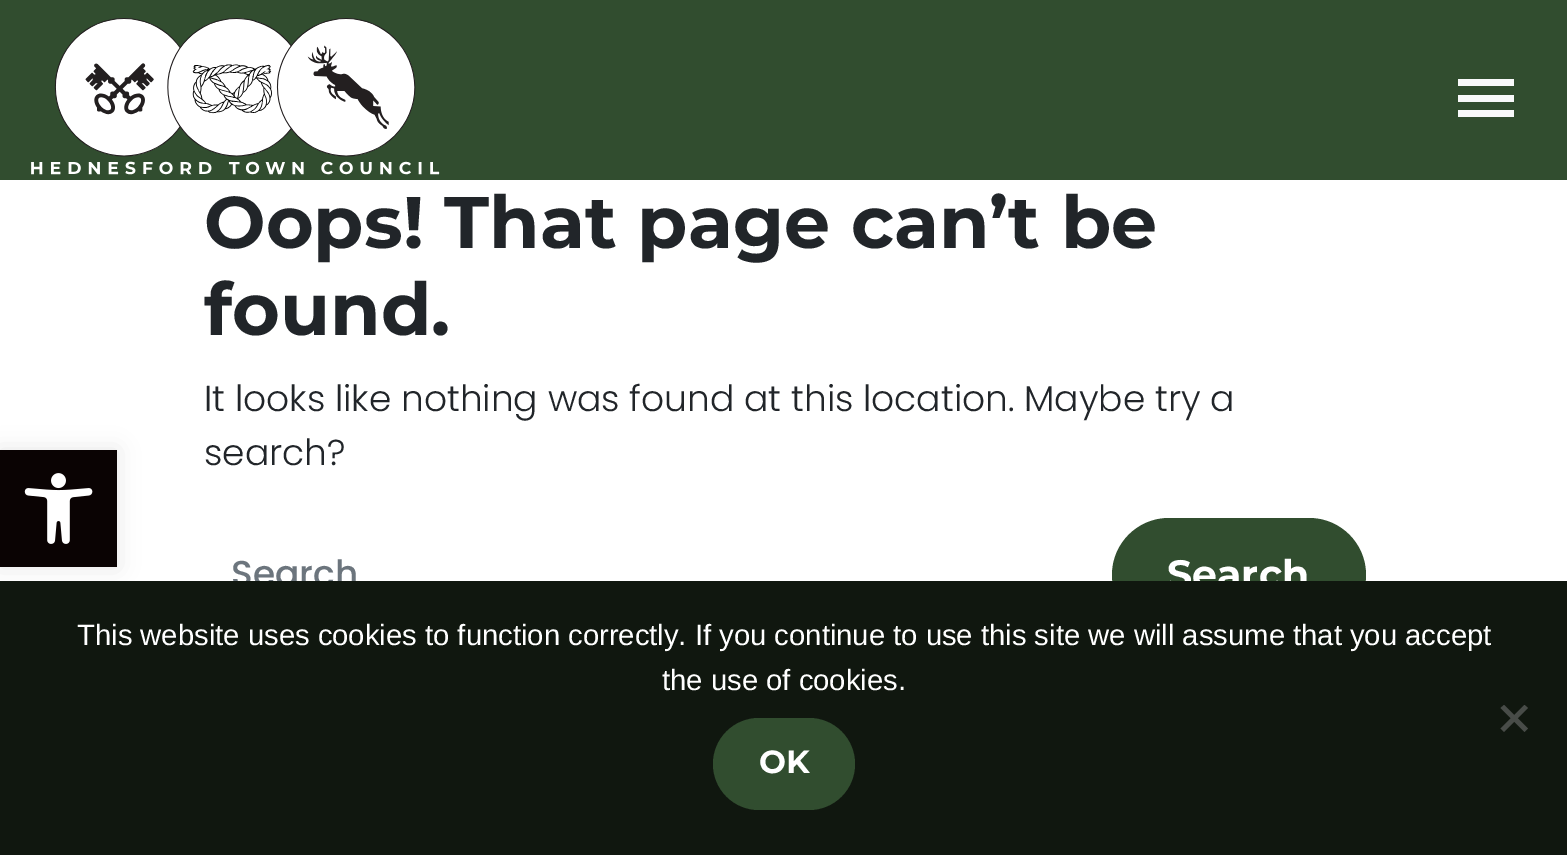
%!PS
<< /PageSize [1567 855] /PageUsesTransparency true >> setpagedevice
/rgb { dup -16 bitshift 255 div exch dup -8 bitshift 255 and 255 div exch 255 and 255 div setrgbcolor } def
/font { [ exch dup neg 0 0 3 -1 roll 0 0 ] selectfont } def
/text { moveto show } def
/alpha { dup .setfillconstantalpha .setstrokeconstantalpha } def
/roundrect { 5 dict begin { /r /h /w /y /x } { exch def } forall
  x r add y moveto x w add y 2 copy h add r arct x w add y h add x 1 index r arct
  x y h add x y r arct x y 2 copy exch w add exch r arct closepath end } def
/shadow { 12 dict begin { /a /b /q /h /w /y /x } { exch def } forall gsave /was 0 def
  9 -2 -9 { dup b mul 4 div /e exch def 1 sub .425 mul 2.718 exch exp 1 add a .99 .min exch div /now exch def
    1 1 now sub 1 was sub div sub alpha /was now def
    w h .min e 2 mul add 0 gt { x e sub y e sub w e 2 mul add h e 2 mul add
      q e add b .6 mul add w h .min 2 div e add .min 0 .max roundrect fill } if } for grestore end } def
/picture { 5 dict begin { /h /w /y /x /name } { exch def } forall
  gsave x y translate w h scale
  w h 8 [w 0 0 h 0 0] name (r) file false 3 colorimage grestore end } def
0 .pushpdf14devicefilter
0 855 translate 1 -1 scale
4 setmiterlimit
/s1 { /Montserrat-Bold 73 font 16#212529 rgb } def
/s2 { /Poppins-Light 36 font 16#212529 rgb } def
/s3 { /Poppins-Medium 36 font 16#6C757D rgb } def
/s4 { /Montserrat-Bold 39.5 font 16#FFFFFF rgb } def
/s5 { /LiberationSans-Regular 29.25 font 16#FFFFFF rgb } def
/s6 { /Montserrat-Bold 32 font 16#FFFFFF rgb } def
16#FFFFFF rgb
0 0 1567 855 rectfill
16#000000 rgb
0 450 117 117 0 11 0.1 shadow
16#0A0303 rgb
0 450 117 117 rectfill
(pic1.raw) 24 473 69 71 picture
16#314D2F rgb
0 0 1567 180 rectfill
(pic2.raw) 31 18 409 157 picture
16#F8F9FA rgb
1458 95 56 7 rectfill
1458 79 56 7 rectfill
1458 110 56 7 rectfill
s1
(Oops! That page can’t be) 204 248 text
(found.) 204 335 text
s2
(It looks like nothing was found at this location. Maybe try a) 204 411 text
(search?) 204 465 text
s3
(Search) 231 586 text
16#314D2F rgb
1112 518 254 114 57 roundrect fill
s4
(Search) 1167 588 text
16#10170F rgb
0 581 1567 274 rectfill
s5
(This website uses cookies to function correctly. If you continue to use this site we will assume that you accept) 77 645 text
(the use of cookies.) 662 690 text
16#484C48 rgb
1524.5 705 moveto 1528 708 lineto 1504 732 lineto 1500.5 728.5 lineto closepath fill
1500.5 708 moveto 1504 705 lineto 1528 728.5 lineto 1524.5 732 lineto closepath fill
16#314D2F rgb
713 718 142 92 46 roundrect fill
s6
(OK) 759 773 text
.poppdf14devicefilter showpage
